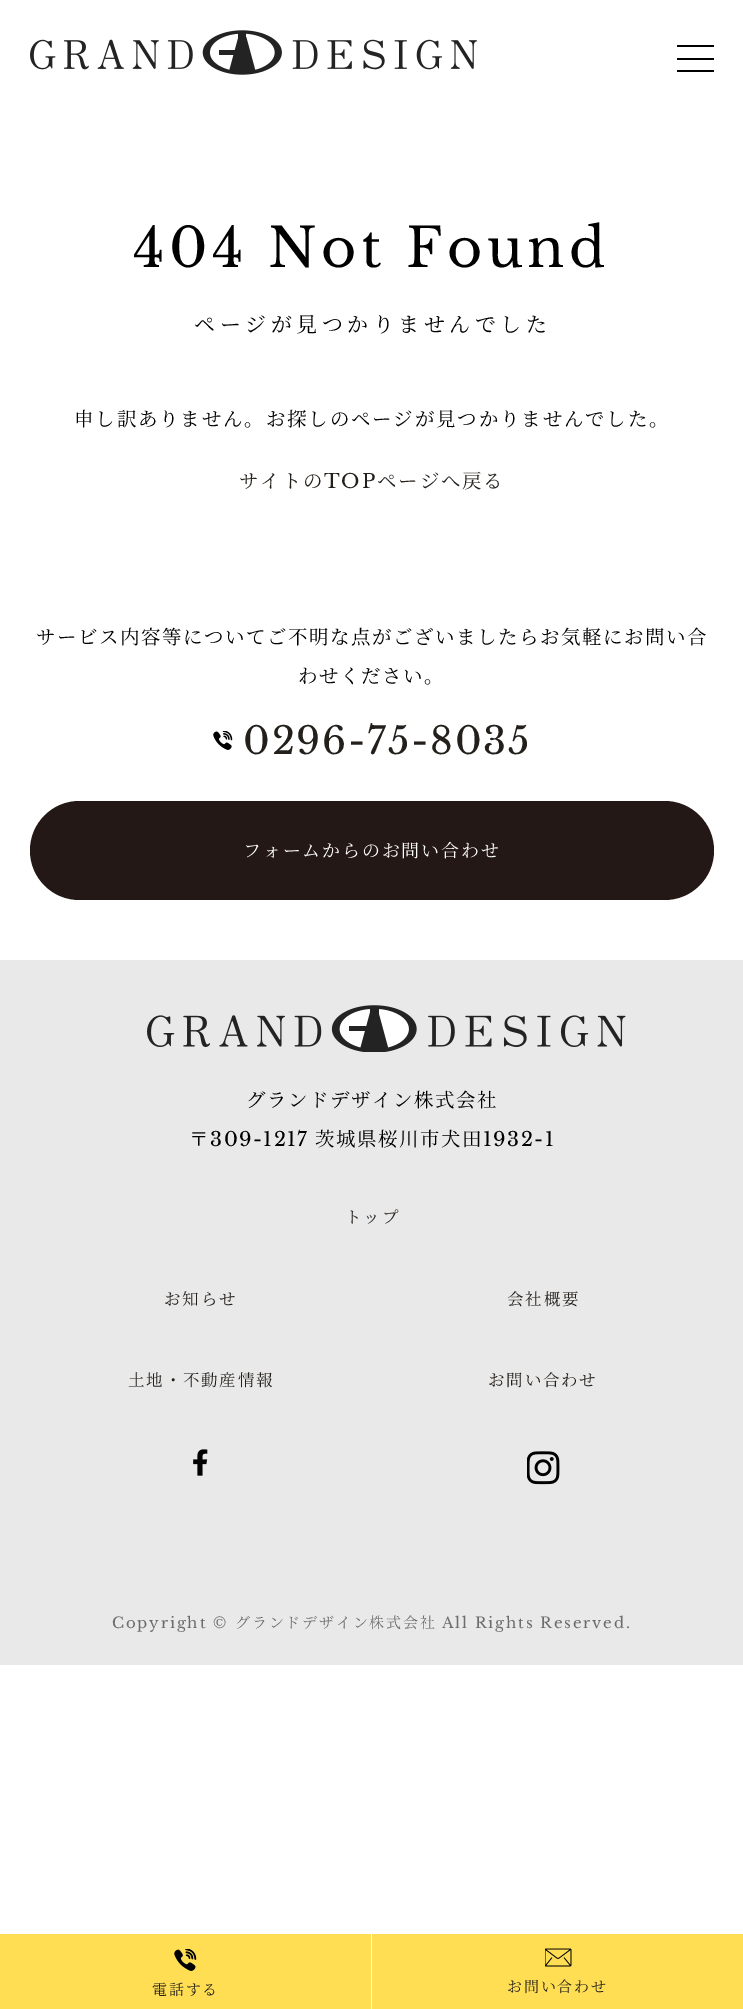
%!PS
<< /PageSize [743 2009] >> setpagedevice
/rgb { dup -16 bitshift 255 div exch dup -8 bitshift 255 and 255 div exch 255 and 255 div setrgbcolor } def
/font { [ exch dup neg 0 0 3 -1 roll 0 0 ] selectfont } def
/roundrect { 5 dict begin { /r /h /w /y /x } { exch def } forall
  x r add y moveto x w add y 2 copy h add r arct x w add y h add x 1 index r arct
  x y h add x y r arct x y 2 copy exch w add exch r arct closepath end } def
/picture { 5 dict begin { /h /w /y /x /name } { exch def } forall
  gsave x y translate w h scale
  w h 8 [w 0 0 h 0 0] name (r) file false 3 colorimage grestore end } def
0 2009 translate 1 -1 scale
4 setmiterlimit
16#FFFFFF rgb
0 0 743 2009 rectfill
(pic1.raw) 30 30 447 45 picture
16#000000 rgb
677 45 37 2 rectfill
677 58 37 2 rectfill
677 70 37 2 rectfill
/LibreBaskerville-Regular 54 font
133 267 moveto 4.5 0 (404 Not Found) ashow
/NotoSerifJP-Regular 21 font
194 332 moveto 4.5 0 (ページが見つかりませんでした) ashow
/NotoSerifJP-Regular 19.5 font
74 426 moveto 1.8 0 (申し訳ありません。お探しのページが見つかりませんでした。) ashow
16#231F1B rgb
239 488 moveto 1.8 0 (サイトの) ashow
/LibreBaskerville-Regular 19.5 font
324 488 moveto 1.8 0 (TOP) ashow
/NotoSerifJP-Regular 19.5 font
377 488 moveto 1.8 0 (ページへ戻る) ashow
16#000000 rgb
36 644 moveto 1.5 0 (サービス内容等についてご不明な点がございましたらお気軽にお問い合) ashow
298 683 moveto 1.5 0 (わせください。) ashow
(pic2.raw) 213 731 20 19 picture
/LibreBaskerville-Regular 37.5 font
16#231F1B rgb
243 754 moveto 1.8 0 (0296-75-8035) ashow
16#231815 rgb
30 801 684 99 49.5 roundrect fill
/NotoSerifJP-Regular 18 font
16#FFFFFF rgb
243 857 moveto 1.8 0 (フォームからのお問い合わせ) ashow
16#E9E9E9 rgb
0 960 743 705 rectfill
(pic3.raw) 147 1005 479 47 picture
/NotoSerifJP-Regular 19.5 font
16#000000 rgb
246 1107 moveto 1.5 0 (グランドデザイン株式会社) ashow
189 1146 moveto 1.5 0 (〒) ashow
/LibreBaskerville-Regular 19.5 font
210 1146 moveto 1.5 0 (309-1217) ashow
/NotoSerifJP-Regular 19.5 font
315 1146 moveto 1.5 0 (茨城県桜川市犬田) ashow
/LibreBaskerville-Regular 19.5 font
483 1146 moveto 1.5 0 (1932-1) ashow
/NotoSerifJP-Regular 16.5 font
16#231F1B rgb
345 1223 moveto 1.8 0 (トップ) ashow
164 1305 moveto 1.8 0 (お知らせ) ashow
507 1305 moveto 1.8 0 (会社概要) ashow
128 1386 moveto 1.8 0 (土地・不動産情報) ashow
488 1386 moveto 1.8 0 (お問い合わせ) ashow
(pic4.raw) 193 1449 15 27 picture
(pic5.raw) 527 1451 33 34 picture
/LibreBaskerville-Regular 15 font
16#6C6C6C rgb
112 1628 moveto 1.8 0 (Copyright ©) ashow
/NotoSerifJP-Regular 15 font
235 1628 moveto 1.8 0 (グランドデザイン株式会社) ashow
/LibreBaskerville-Regular 15 font
442 1628 moveto 1.8 0 (All Rights Reserved.) ashow
16#FFDE53 rgb
0 1934 371 75 rectfill
(pic6.raw) 174 1949 23 22 picture
/NotoSerifJP-Regular 15 font
16#231F1B rgb
152 1995 moveto 1.8 0 (電話する) ashow
16#FFDE53 rgb
372 1934 371 75 rectfill
(pic7.raw) 545 1948 27 19 picture
16#231F1B rgb
507 1992 moveto 1.8 0 (お問い合わせ) ashow
showpage
